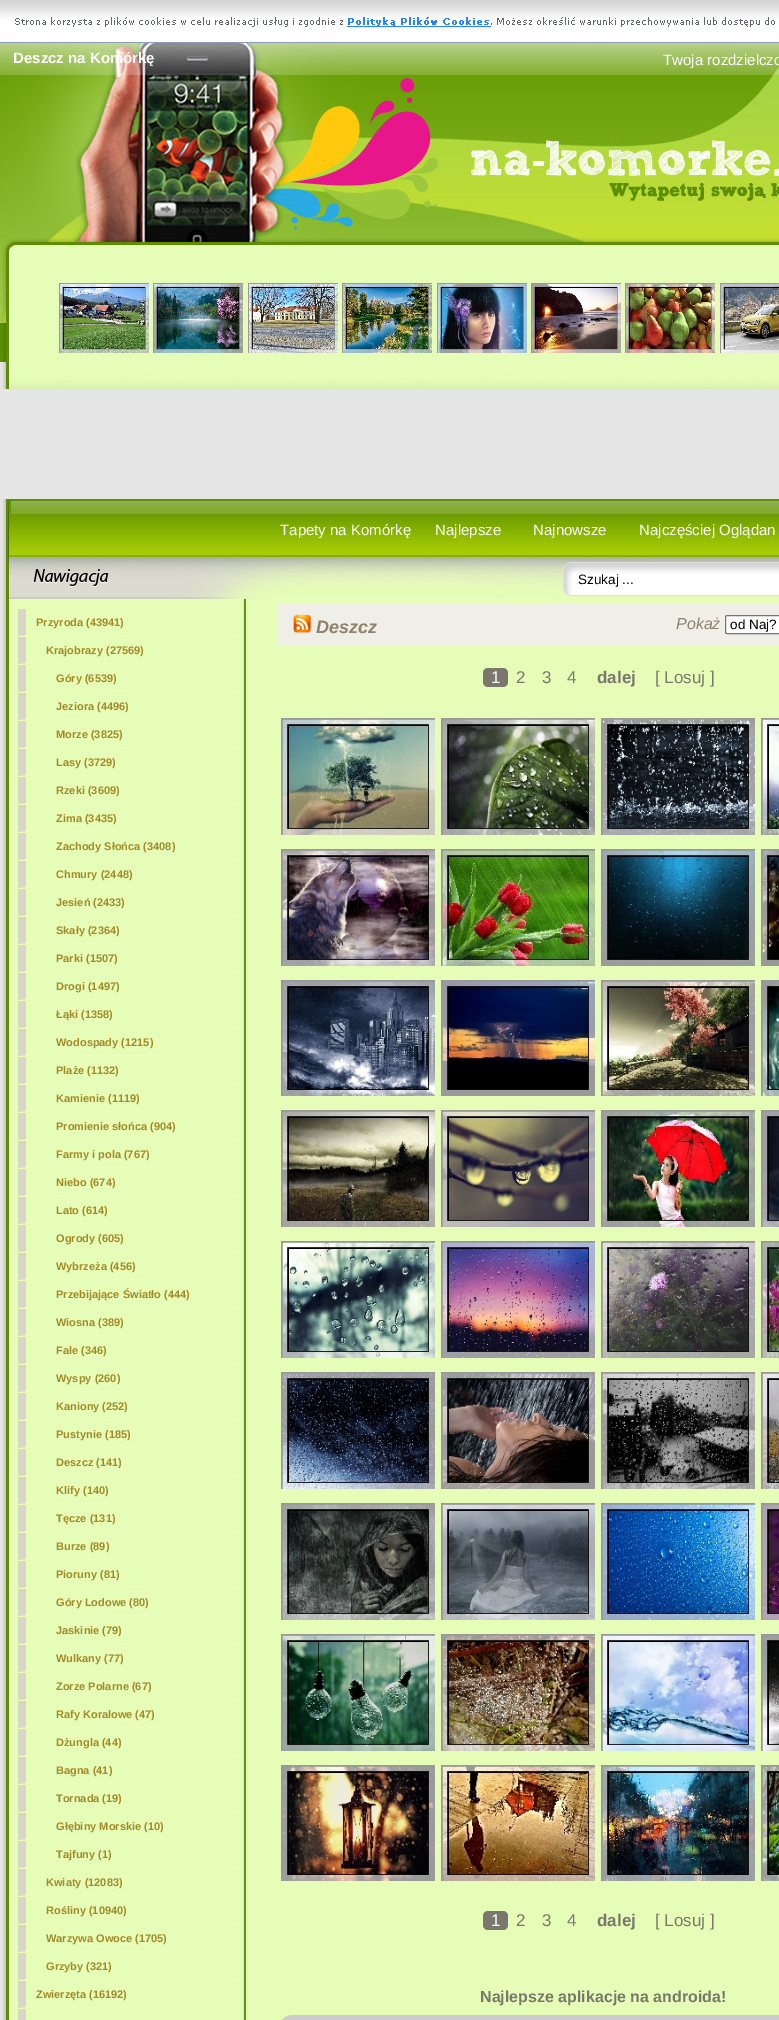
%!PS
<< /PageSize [779 2020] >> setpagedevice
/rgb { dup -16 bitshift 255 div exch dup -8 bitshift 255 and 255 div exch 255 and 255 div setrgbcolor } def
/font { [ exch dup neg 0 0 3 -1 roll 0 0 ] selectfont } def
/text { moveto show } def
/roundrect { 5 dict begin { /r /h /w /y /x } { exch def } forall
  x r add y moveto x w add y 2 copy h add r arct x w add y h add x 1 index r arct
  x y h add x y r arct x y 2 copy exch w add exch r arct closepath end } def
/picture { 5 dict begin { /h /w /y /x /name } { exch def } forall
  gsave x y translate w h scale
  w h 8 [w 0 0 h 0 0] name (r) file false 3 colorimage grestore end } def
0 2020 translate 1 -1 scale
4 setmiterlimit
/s1 { /LiberationSans-Bold 15 font 16#FFFFFF rgb } def
/s2 { /LiberationSans-Regular 15 font 16#FFFFFF rgb } def
/s3 { /LiberationSans-Regular 13.5 font 16#000000 rgb } def
/s4 { /LiberationSans-Bold 11 font 16#A38B2A rgb } def
/s5 { /LiberationSans-BoldItalic 18 font 16#8E816D rgb } def
/s6 { /LiberationSans-Italic 16 font 16#8E816D rgb } def
/s7 { /LiberationSans-Regular 17 font 16#FFFFFF rgb } def
/s8 { /LiberationSans-Regular 17 font 16#7A776C rgb } def
/s9 { /LiberationSans-Bold 17 font 16#7A776C rgb } def
/s10 { /LiberationSans-Bold 16 font 16#7A776C rgb } def
16#E5E5E5 rgb
0 0 779 2020 rectfill
(pic1.raw) 0 0 779 43 picture
(pic2.raw) 15 17 760 10 picture
(pic3.raw) 0 43 779 207 picture
s1
(Deszcz na Komórkę) 13 63 text
s2
(Twoja rozdzielczo) 663 65 text
(pic4.raw) 0 250 779 139 picture
(pic5.raw) 59 283 90 70 picture
(pic6.raw) 153 283 90 70 picture
(pic7.raw) 248 283 90 70 picture
(pic8.raw) 342 283 90 70 picture
(pic9.raw) 437 283 90 70 picture
(pic10.raw) 531 283 90 70 picture
(pic11.raw) 625 283 90 70 picture
(pic12.raw) 720 283 59 70 picture
(pic13.raw) 0 499 779 100 picture
(Tapety na Komórkę) 280 535 text
(Najlepsze) 435 535 text
(Najnowsze) 533 535 text
(Najczęściej Oglądan) 639 535 text
(pic14.raw) 563 562 216 34 picture
s3
(Szukaj ...) 578 584 text
(pic15.raw) 2 599 777 1421 picture
16#F8F1E9 rgb
238 636 moveto 18 636 lineto 26 635 lineto 238 635 lineto closepath fill
16#D9D5C7 rgb
18 636 moveto 18 609 lineto 26 609 lineto 26 635 lineto closepath fill
s4
(Przyroda \(43941\)) 36 626 text
16#F8F1E9 rgb
238 664 moveto 18 664 lineto 26 663 lineto 238 663 lineto closepath fill
16#D9D5C7 rgb
18 664 moveto 18 637 lineto 26 637 lineto 26 663 lineto closepath fill
s4
(Krajobrazy \(27569\)) 46 654 text
16#F8F1E9 rgb
238 692 moveto 18 692 lineto 26 691 lineto 238 691 lineto closepath fill
16#D9D5C7 rgb
18 692 moveto 18 665 lineto 26 665 lineto 26 691 lineto closepath fill
s4
(Góry \(6539\)) 56 682 text
16#F8F1E9 rgb
238 720 moveto 18 720 lineto 26 719 lineto 238 719 lineto closepath fill
16#D9D5C7 rgb
18 720 moveto 18 693 lineto 26 693 lineto 26 719 lineto closepath fill
s4
(Jeziora \(4496\)) 56 710 text
16#F8F1E9 rgb
238 748 moveto 18 748 lineto 26 747 lineto 238 747 lineto closepath fill
16#D9D5C7 rgb
18 748 moveto 18 721 lineto 26 721 lineto 26 747 lineto closepath fill
s4
(Morze \(3825\)) 56 738 text
16#F8F1E9 rgb
238 776 moveto 18 776 lineto 26 775 lineto 238 775 lineto closepath fill
16#D9D5C7 rgb
18 776 moveto 18 749 lineto 26 749 lineto 26 775 lineto closepath fill
s4
(Lasy \(3729\)) 56 766 text
16#F8F1E9 rgb
238 804 moveto 18 804 lineto 26 803 lineto 238 803 lineto closepath fill
16#D9D5C7 rgb
18 804 moveto 18 777 lineto 26 777 lineto 26 803 lineto closepath fill
s4
(Rzeki \(3609\)) 56 794 text
16#F8F1E9 rgb
238 832 moveto 18 832 lineto 26 831 lineto 238 831 lineto closepath fill
16#D9D5C7 rgb
18 832 moveto 18 805 lineto 26 805 lineto 26 831 lineto closepath fill
s4
(Zima \(3435\)) 56 822 text
16#F8F1E9 rgb
238 860 moveto 18 860 lineto 26 859 lineto 238 859 lineto closepath fill
16#D9D5C7 rgb
18 860 moveto 18 833 lineto 26 833 lineto 26 859 lineto closepath fill
s4
(Zachody Słońca \(3408\)) 56 850 text
16#F8F1E9 rgb
238 888 moveto 18 888 lineto 26 887 lineto 238 887 lineto closepath fill
16#D9D5C7 rgb
18 888 moveto 18 861 lineto 26 861 lineto 26 887 lineto closepath fill
s4
(Chmury \(2448\)) 56 878 text
16#F8F1E9 rgb
238 916 moveto 18 916 lineto 26 915 lineto 238 915 lineto closepath fill
16#D9D5C7 rgb
18 916 moveto 18 889 lineto 26 889 lineto 26 915 lineto closepath fill
s4
(Jesień \(2433\)) 56 906 text
16#F8F1E9 rgb
238 944 moveto 18 944 lineto 26 943 lineto 238 943 lineto closepath fill
16#D9D5C7 rgb
18 944 moveto 18 917 lineto 26 917 lineto 26 943 lineto closepath fill
s4
(Skały \(2364\)) 56 934 text
16#F8F1E9 rgb
238 972 moveto 18 972 lineto 26 971 lineto 238 971 lineto closepath fill
16#D9D5C7 rgb
18 972 moveto 18 945 lineto 26 945 lineto 26 971 lineto closepath fill
s4
(Parki \(1507\)) 56 962 text
16#F8F1E9 rgb
238 1000 moveto 18 1000 lineto 26 999 lineto 238 999 lineto closepath fill
16#D9D5C7 rgb
18 1000 moveto 18 973 lineto 26 973 lineto 26 999 lineto closepath fill
s4
(Drogi \(1497\)) 56 990 text
16#F8F1E9 rgb
238 1028 moveto 18 1028 lineto 26 1027 lineto 238 1027 lineto closepath fill
16#D9D5C7 rgb
18 1028 moveto 18 1001 lineto 26 1001 lineto 26 1027 lineto closepath fill
s4
(Łąki \(1358\)) 56 1018 text
16#F8F1E9 rgb
238 1056 moveto 18 1056 lineto 26 1055 lineto 238 1055 lineto closepath fill
16#D9D5C7 rgb
18 1056 moveto 18 1029 lineto 26 1029 lineto 26 1055 lineto closepath fill
s4
(Wodospady \(1215\)) 56 1046 text
16#F8F1E9 rgb
238 1084 moveto 18 1084 lineto 26 1083 lineto 238 1083 lineto closepath fill
16#D9D5C7 rgb
18 1084 moveto 18 1057 lineto 26 1057 lineto 26 1083 lineto closepath fill
s4
(Plaże \(1132\)) 56 1074 text
16#F8F1E9 rgb
238 1112 moveto 18 1112 lineto 26 1111 lineto 238 1111 lineto closepath fill
16#D9D5C7 rgb
18 1112 moveto 18 1085 lineto 26 1085 lineto 26 1111 lineto closepath fill
s4
(Kamienie \(1119\)) 56 1102 text
16#F8F1E9 rgb
238 1140 moveto 18 1140 lineto 26 1139 lineto 238 1139 lineto closepath fill
16#D9D5C7 rgb
18 1140 moveto 18 1113 lineto 26 1113 lineto 26 1139 lineto closepath fill
s4
(Promienie słońca \(904\)) 56 1130 text
16#F8F1E9 rgb
238 1168 moveto 18 1168 lineto 26 1167 lineto 238 1167 lineto closepath fill
16#D9D5C7 rgb
18 1168 moveto 18 1141 lineto 26 1141 lineto 26 1167 lineto closepath fill
s4
(Farmy i pola \(767\)) 56 1158 text
16#F8F1E9 rgb
238 1196 moveto 18 1196 lineto 26 1195 lineto 238 1195 lineto closepath fill
16#D9D5C7 rgb
18 1196 moveto 18 1169 lineto 26 1169 lineto 26 1195 lineto closepath fill
s4
(Niebo \(674\)) 56 1186 text
16#F8F1E9 rgb
238 1224 moveto 18 1224 lineto 26 1223 lineto 238 1223 lineto closepath fill
16#D9D5C7 rgb
18 1224 moveto 18 1197 lineto 26 1197 lineto 26 1223 lineto closepath fill
s4
(Lato \(614\)) 56 1214 text
16#F8F1E9 rgb
238 1252 moveto 18 1252 lineto 26 1251 lineto 238 1251 lineto closepath fill
16#D9D5C7 rgb
18 1252 moveto 18 1225 lineto 26 1225 lineto 26 1251 lineto closepath fill
s4
(Ogrody \(605\)) 56 1242 text
16#F8F1E9 rgb
238 1280 moveto 18 1280 lineto 26 1279 lineto 238 1279 lineto closepath fill
16#D9D5C7 rgb
18 1280 moveto 18 1253 lineto 26 1253 lineto 26 1279 lineto closepath fill
s4
(Wybrzeża \(456\)) 56 1270 text
16#F8F1E9 rgb
238 1308 moveto 18 1308 lineto 26 1307 lineto 238 1307 lineto closepath fill
16#D9D5C7 rgb
18 1308 moveto 18 1281 lineto 26 1281 lineto 26 1307 lineto closepath fill
s4
(Przebijające Światło \(444\)) 56 1298 text
16#F8F1E9 rgb
238 1336 moveto 18 1336 lineto 26 1335 lineto 238 1335 lineto closepath fill
16#D9D5C7 rgb
18 1336 moveto 18 1309 lineto 26 1309 lineto 26 1335 lineto closepath fill
s4
(Wiosna \(389\)) 56 1326 text
16#F8F1E9 rgb
238 1364 moveto 18 1364 lineto 26 1363 lineto 238 1363 lineto closepath fill
16#D9D5C7 rgb
18 1364 moveto 18 1337 lineto 26 1337 lineto 26 1363 lineto closepath fill
s4
(Fale \(346\)) 56 1354 text
16#F8F1E9 rgb
238 1392 moveto 18 1392 lineto 26 1391 lineto 238 1391 lineto closepath fill
16#D9D5C7 rgb
18 1392 moveto 18 1365 lineto 26 1365 lineto 26 1391 lineto closepath fill
s4
(Wyspy \(260\)) 56 1382 text
16#F8F1E9 rgb
238 1420 moveto 18 1420 lineto 26 1419 lineto 238 1419 lineto closepath fill
16#D9D5C7 rgb
18 1420 moveto 18 1393 lineto 26 1393 lineto 26 1419 lineto closepath fill
s4
(Kaniony \(252\)) 56 1410 text
16#F8F1E9 rgb
238 1448 moveto 18 1448 lineto 26 1447 lineto 238 1447 lineto closepath fill
16#D9D5C7 rgb
18 1448 moveto 18 1421 lineto 26 1421 lineto 26 1447 lineto closepath fill
s4
(Pustynie \(185\)) 56 1438 text
16#F8F1E9 rgb
238 1476 moveto 18 1476 lineto 26 1475 lineto 238 1475 lineto closepath fill
16#D9D5C7 rgb
18 1476 moveto 18 1449 lineto 26 1449 lineto 26 1475 lineto closepath fill
s4
(Deszcz \(141\)) 56 1466 text
16#F8F1E9 rgb
238 1504 moveto 18 1504 lineto 26 1503 lineto 238 1503 lineto closepath fill
16#D9D5C7 rgb
18 1504 moveto 18 1477 lineto 26 1477 lineto 26 1503 lineto closepath fill
s4
(Klify \(140\)) 56 1494 text
16#F8F1E9 rgb
238 1532 moveto 18 1532 lineto 26 1531 lineto 238 1531 lineto closepath fill
16#D9D5C7 rgb
18 1532 moveto 18 1505 lineto 26 1505 lineto 26 1531 lineto closepath fill
s4
(Tęcze \(131\)) 56 1522 text
16#F8F1E9 rgb
238 1560 moveto 18 1560 lineto 26 1559 lineto 238 1559 lineto closepath fill
16#D9D5C7 rgb
18 1560 moveto 18 1533 lineto 26 1533 lineto 26 1559 lineto closepath fill
s4
(Burze \(89\)) 56 1550 text
16#F8F1E9 rgb
238 1588 moveto 18 1588 lineto 26 1587 lineto 238 1587 lineto closepath fill
16#D9D5C7 rgb
18 1588 moveto 18 1561 lineto 26 1561 lineto 26 1587 lineto closepath fill
s4
(Pioruny \(81\)) 56 1578 text
16#F8F1E9 rgb
238 1616 moveto 18 1616 lineto 26 1615 lineto 238 1615 lineto closepath fill
16#D9D5C7 rgb
18 1616 moveto 18 1589 lineto 26 1589 lineto 26 1615 lineto closepath fill
s4
(Góry Lodowe \(80\)) 56 1606 text
16#F8F1E9 rgb
238 1644 moveto 18 1644 lineto 26 1643 lineto 238 1643 lineto closepath fill
16#D9D5C7 rgb
18 1644 moveto 18 1617 lineto 26 1617 lineto 26 1643 lineto closepath fill
s4
(Jaskinie \(79\)) 56 1634 text
16#F8F1E9 rgb
238 1672 moveto 18 1672 lineto 26 1671 lineto 238 1671 lineto closepath fill
16#D9D5C7 rgb
18 1672 moveto 18 1645 lineto 26 1645 lineto 26 1671 lineto closepath fill
s4
(Wulkany \(77\)) 56 1662 text
16#F8F1E9 rgb
238 1700 moveto 18 1700 lineto 26 1699 lineto 238 1699 lineto closepath fill
16#D9D5C7 rgb
18 1700 moveto 18 1673 lineto 26 1673 lineto 26 1699 lineto closepath fill
s4
(Zorze Polarne \(67\)) 56 1690 text
16#F8F1E9 rgb
238 1728 moveto 18 1728 lineto 26 1727 lineto 238 1727 lineto closepath fill
16#D9D5C7 rgb
18 1728 moveto 18 1701 lineto 26 1701 lineto 26 1727 lineto closepath fill
s4
(Rafy Koralowe \(47\)) 56 1718 text
16#F8F1E9 rgb
238 1756 moveto 18 1756 lineto 26 1755 lineto 238 1755 lineto closepath fill
16#D9D5C7 rgb
18 1756 moveto 18 1729 lineto 26 1729 lineto 26 1755 lineto closepath fill
s4
(Dżungla \(44\)) 56 1746 text
16#F8F1E9 rgb
238 1784 moveto 18 1784 lineto 26 1783 lineto 238 1783 lineto closepath fill
16#D9D5C7 rgb
18 1784 moveto 18 1757 lineto 26 1757 lineto 26 1783 lineto closepath fill
s4
(Bagna \(41\)) 56 1774 text
16#F8F1E9 rgb
238 1812 moveto 18 1812 lineto 26 1811 lineto 238 1811 lineto closepath fill
16#D9D5C7 rgb
18 1812 moveto 18 1785 lineto 26 1785 lineto 26 1811 lineto closepath fill
s4
(Tornada \(19\)) 56 1802 text
16#F8F1E9 rgb
238 1840 moveto 18 1840 lineto 26 1839 lineto 238 1839 lineto closepath fill
16#D9D5C7 rgb
18 1840 moveto 18 1813 lineto 26 1813 lineto 26 1839 lineto closepath fill
s4
(Głębiny Morskie \(10\)) 56 1830 text
16#F8F1E9 rgb
238 1868 moveto 18 1868 lineto 26 1867 lineto 238 1867 lineto closepath fill
16#D9D5C7 rgb
18 1868 moveto 18 1841 lineto 26 1841 lineto 26 1867 lineto closepath fill
s4
(Tajfuny \(1\)) 56 1858 text
16#F8F1E9 rgb
238 1896 moveto 18 1896 lineto 26 1895 lineto 238 1895 lineto closepath fill
16#D9D5C7 rgb
18 1896 moveto 18 1869 lineto 26 1869 lineto 26 1895 lineto closepath fill
s4
(Kwiaty \(12083\)) 46 1886 text
16#F8F1E9 rgb
238 1924 moveto 18 1924 lineto 26 1923 lineto 238 1923 lineto closepath fill
16#D9D5C7 rgb
18 1924 moveto 18 1897 lineto 26 1897 lineto 26 1923 lineto closepath fill
s4
(Rośliny \(10940\)) 46 1914 text
16#F8F1E9 rgb
238 1952 moveto 18 1952 lineto 26 1951 lineto 238 1951 lineto closepath fill
16#D9D5C7 rgb
18 1952 moveto 18 1925 lineto 26 1925 lineto 26 1951 lineto closepath fill
s4
(Warzywa Owoce \(1705\)) 46 1942 text
16#F8F1E9 rgb
238 1980 moveto 18 1980 lineto 26 1979 lineto 238 1979 lineto closepath fill
16#D9D5C7 rgb
18 1980 moveto 18 1953 lineto 26 1953 lineto 26 1979 lineto closepath fill
s4
(Grzyby \(321\)) 46 1970 text
16#F8F1E9 rgb
238 2008 moveto 18 2008 lineto 26 2007 lineto 238 2007 lineto closepath fill
16#D9D5C7 rgb
18 2008 moveto 18 1981 lineto 26 1981 lineto 26 2007 lineto closepath 18 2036 moveto 18 2009 lineto 26 2009 lineto 26 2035 lineto closepath fill
s4
(Zwierzęta \(16192\)) 36 1998 text
16#EFEFE7 rgb
278 604 114 42 rectfill
(pic16.raw) 293 614 19 19 picture
s5
(Deszcz) 316 633 text
16#EFEFE7 rgb
392 604 387 41 rectfill
s6
(Pokaż) 676 629 text
16#FFFFFF rgb
725.5 615.5 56 18 1.5 roundrect gsave fill grestore
16#767676 rgb
stroke
s3
(od Naj?) 730 629 text
16#7A776C rgb
483 668 25 19 5 roundrect fill
s7
(1) 491 683 text
s8
(2) 516 683 text
(3) 542 683 text
(4) 567 683 text
s9
(dalej) 597 683 text
s8
([ Losuj ]) 655 683 text
(pic17.raw) 281 718 154 117 picture
(pic18.raw) 441 718 154 117 picture
(pic19.raw) 601 718 154 117 picture
(pic20.raw) 761 718 18 117 picture
(pic21.raw) 281 849 154 117 picture
(pic22.raw) 441 849 154 117 picture
(pic23.raw) 601 849 154 117 picture
(pic24.raw) 761 849 18 117 picture
(pic25.raw) 281 980 154 116 picture
(pic26.raw) 441 980 154 116 picture
(pic27.raw) 601 980 154 116 picture
(pic28.raw) 761 980 18 116 picture
(pic29.raw) 281 1110 154 117 picture
(pic30.raw) 441 1110 154 117 picture
(pic31.raw) 601 1110 154 117 picture
(pic32.raw) 761 1110 18 117 picture
(pic33.raw) 281 1241 154 117 picture
(pic34.raw) 441 1241 154 117 picture
(pic35.raw) 601 1241 154 117 picture
(pic36.raw) 761 1241 18 117 picture
(pic37.raw) 281 1372 154 117 picture
(pic38.raw) 441 1372 154 117 picture
(pic39.raw) 601 1372 154 117 picture
(pic40.raw) 761 1372 18 117 picture
(pic41.raw) 281 1503 154 117 picture
(pic42.raw) 441 1503 154 117 picture
(pic43.raw) 601 1503 154 117 picture
(pic44.raw) 761 1503 18 117 picture
(pic45.raw) 281 1634 154 117 picture
(pic46.raw) 441 1634 154 117 picture
(pic47.raw) 601 1634 154 117 picture
(pic48.raw) 761 1634 18 117 picture
(pic49.raw) 281 1765 154 116 picture
(pic50.raw) 441 1765 154 116 picture
(pic51.raw) 601 1765 154 116 picture
(pic52.raw) 761 1765 18 116 picture
483 1911 25 19 5 roundrect fill
s7
(1) 491 1926 text
s8
(2) 516 1926 text
(3) 542 1926 text
(4) 567 1926 text
s9
(dalej) 597 1926 text
s8
([ Losuj ]) 655 1926 text
s10
(Najlepsze aplikacje na androida!) 480 2002 text
16#CCCCCC rgb
278 2015 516 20 15 roundrect fill
showpage
